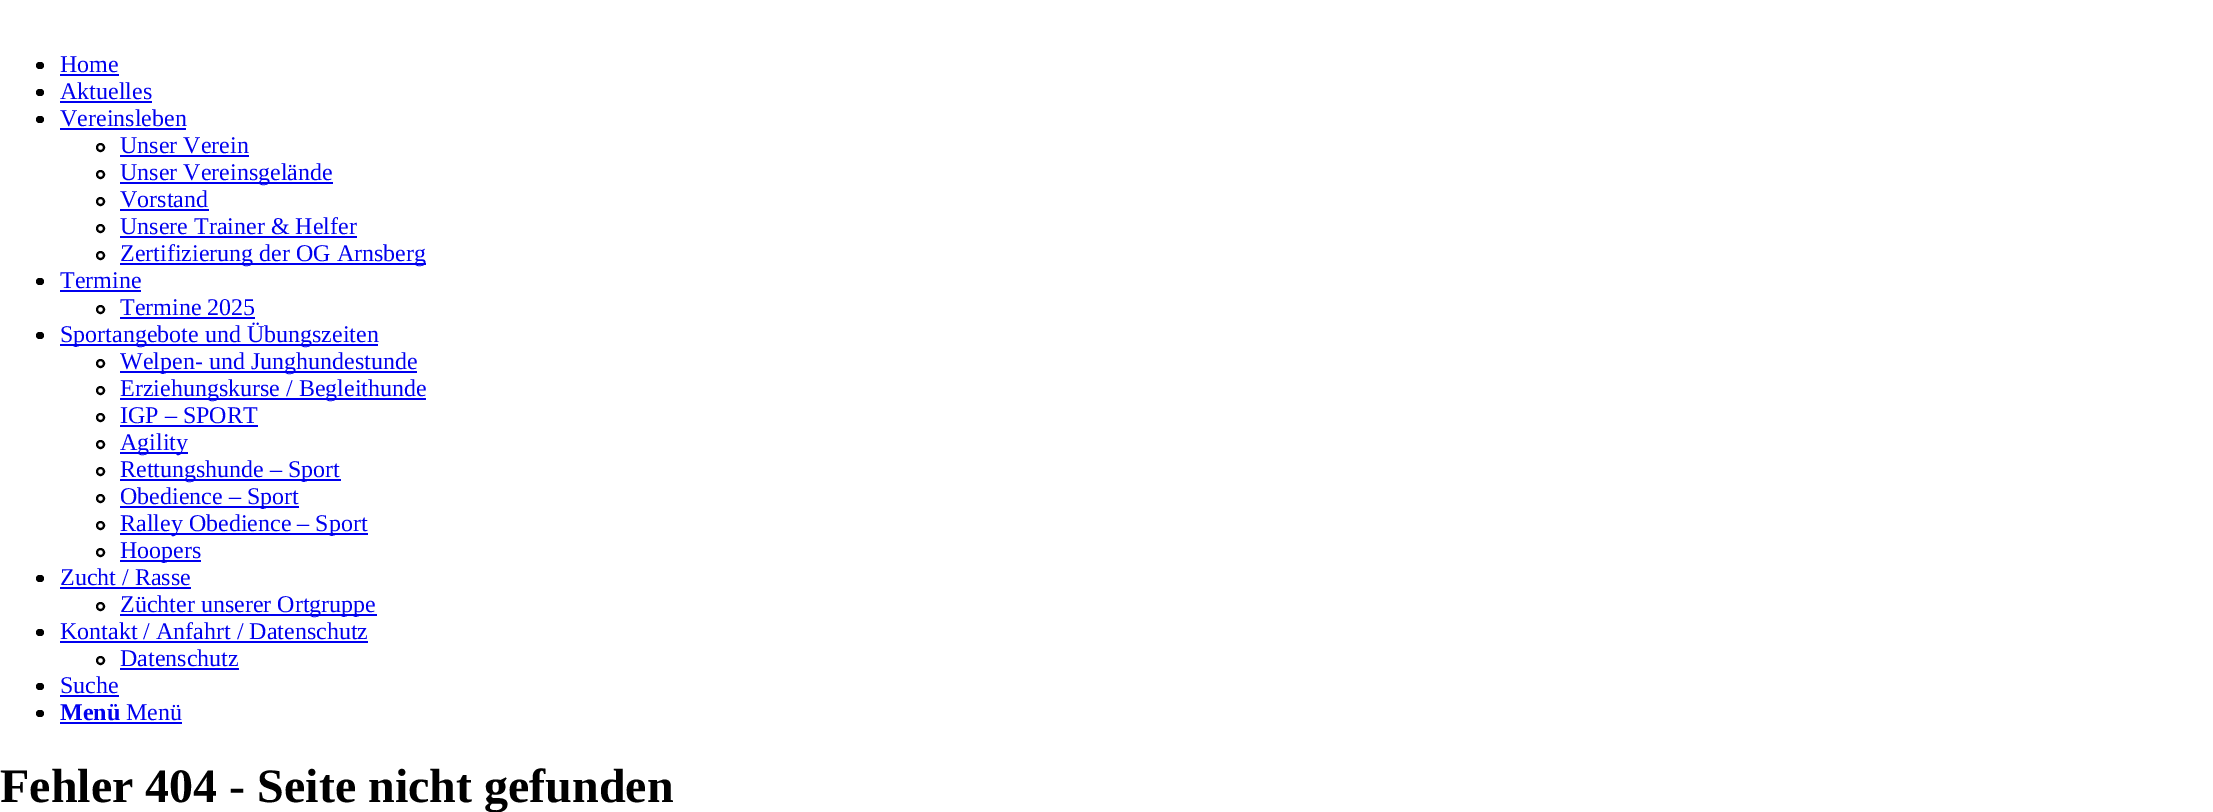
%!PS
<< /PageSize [2213 812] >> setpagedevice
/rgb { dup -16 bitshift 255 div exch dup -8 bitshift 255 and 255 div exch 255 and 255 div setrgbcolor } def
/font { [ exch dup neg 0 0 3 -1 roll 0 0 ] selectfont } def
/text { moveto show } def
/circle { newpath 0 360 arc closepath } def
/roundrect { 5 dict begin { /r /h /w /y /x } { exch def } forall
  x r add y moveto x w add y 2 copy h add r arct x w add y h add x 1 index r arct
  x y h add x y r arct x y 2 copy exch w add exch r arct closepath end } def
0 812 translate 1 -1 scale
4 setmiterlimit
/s1 { /LiberationSerif-Regular 24 font 16#0000EE rgb } def
/s2 { /LiberationSerif-Bold 24 font 16#0000EE rgb } def
/s3 { /LiberationSerif-Bold 48 font 16#000000 rgb } def
16#FFFFFF rgb
0 0 2213 812 rectfill
16#000000 rgb
36 62 8 7 3.5 roundrect fill
s1
(Home) 60 72 text
60 74 59 2 rectfill
16#000000 rgb
36 89 8 7 3.5 roundrect fill
s1
(Aktuelles) 60 99 text
60 101 92 2 rectfill
16#000000 rgb
36 116 8 7 3.5 roundrect fill
s1
(Vereinsleben) 60 126 text
60 128 126 2 rectfill
16#000000 rgb
2 setlinewidth
100.5 147.5 3.5 circle stroke
s1
(Unser Verein) 120 153 text
120 155 129 2 rectfill
16#000000 rgb
100.5 174.5 3.5 circle stroke
16#0000EE rgb
120 182 213 2 rectfill
(Unser Vereinsgelände) 120 180 text
16#000000 rgb
100.5 201.5 3.5 circle stroke
s1
(Vorstand) 120 207 text
120 209 89 2 rectfill
16#000000 rgb
100.5 228.5 3.5 circle stroke
s1
(Unsere Trainer & Helfer) 120 234 text
120 236 237 2 rectfill
16#000000 rgb
100.5 255.5 3.5 circle stroke
16#0000EE rgb
120 263 306 2 rectfill
(Zertifizierung der OG Arnsberg) 120 261 text
16#000000 rgb
36 278 8 7 3.5 roundrect fill
s1
(Termine) 60 288 text
60 290 81 2 rectfill
16#000000 rgb
100.5 309.5 3.5 circle stroke
s1
(Termine 2025) 120 315 text
120 317 135 2 rectfill
16#000000 rgb
36 332 8 7 3.5 roundrect fill
16#0000EE rgb
60 344 318 2 rectfill
(Sportangebote und Übungszeiten) 60 342 text
16#000000 rgb
100.5 363.5 3.5 circle stroke
16#0000EE rgb
120 371 297 2 rectfill
(Welpen- und Junghundestunde) 120 369 text
16#000000 rgb
100.5 390.5 3.5 circle stroke
16#0000EE rgb
120 398 306 2 rectfill
(Erziehungskurse / Begleithunde) 120 396 text
16#000000 rgb
100.5 417.5 3.5 circle stroke
s1
(IGP – SPORT) 120 423 text
120 425 138 2 rectfill
16#000000 rgb
100.5 444.5 3.5 circle stroke
16#0000EE rgb
120 452 68 2 rectfill
(Agility) 120 450 text
16#000000 rgb
100.5 471.5 3.5 circle stroke
16#0000EE rgb
120 479 221 2 rectfill
(Rettungshunde – Sport) 120 477 text
16#000000 rgb
100.5 498.5 3.5 circle stroke
16#0000EE rgb
120 506 179 2 rectfill
(Obedience – Sport) 120 504 text
16#000000 rgb
100.5 525.5 3.5 circle stroke
16#0000EE rgb
120 533 248 2 rectfill
(Ralley Obedience – Sport) 120 531 text
16#000000 rgb
100.5 552.5 3.5 circle stroke
16#0000EE rgb
120 560 81 2 rectfill
(Hoopers) 120 558 text
16#000000 rgb
36 575 8 7 3.5 roundrect fill
s1
(Zucht / Rasse) 60 585 text
60 587 131 2 rectfill
16#000000 rgb
100.5 606.5 3.5 circle stroke
16#0000EE rgb
120 614 257 2 rectfill
(Züchter unserer Ortgruppe) 120 612 text
16#000000 rgb
36 629 8 7 3.5 roundrect fill
s1
(Kontakt / Anfahrt / Datenschutz) 60 639 text
60 641 308 2 rectfill
16#000000 rgb
100.5 660.5 3.5 circle stroke
s1
(Datenschutz) 120 666 text
120 668 119 2 rectfill
16#000000 rgb
36 683 8 7 3.5 roundrect fill
s1
(Suche) 60 693 text
60 695 59 2 rectfill
16#000000 rgb
36 710 8 7 3.5 roundrect fill
s2
(Menü) 60 720 text
s1
(Menü) 126 720 text
60 722 122 2 rectfill
s3
(Fehler 404 - Seite nicht gefunden) 0 802 text
showpage
